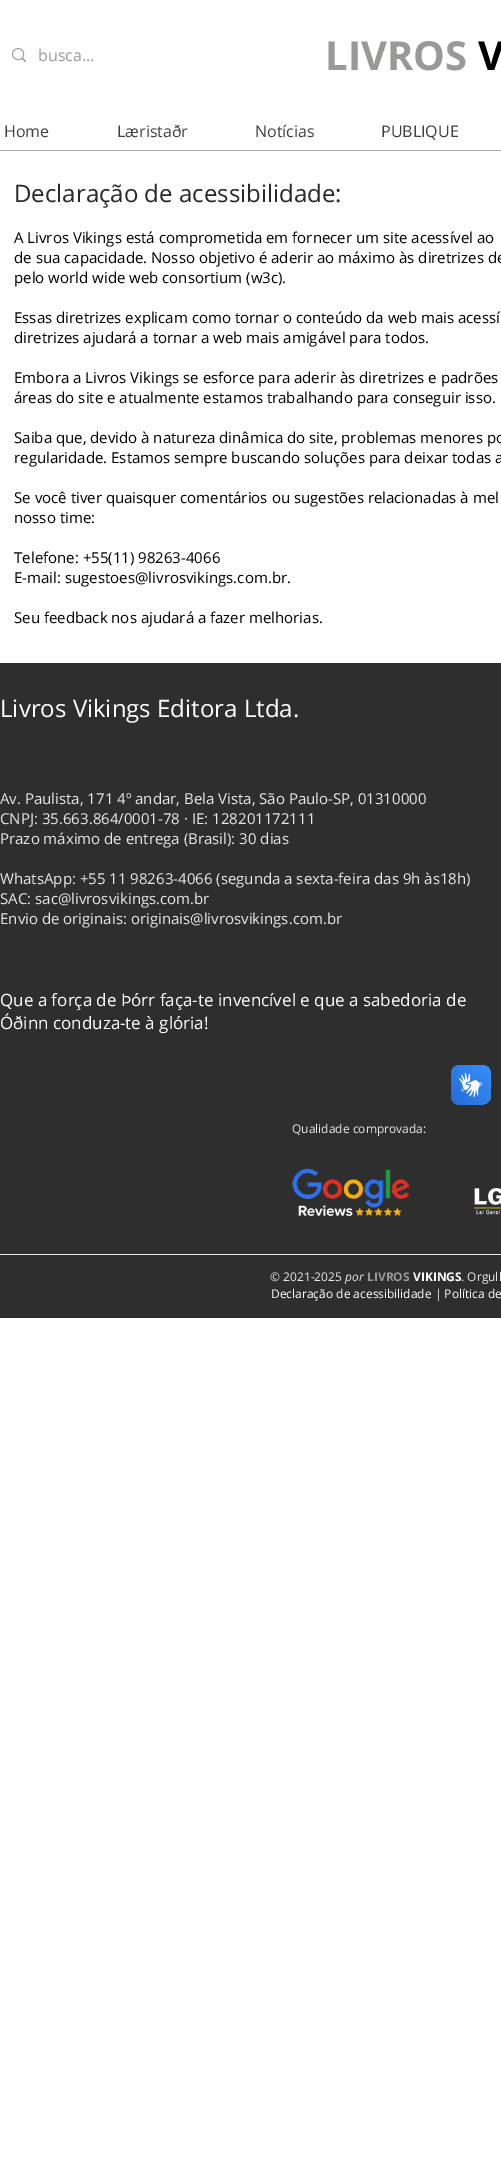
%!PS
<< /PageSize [501 2169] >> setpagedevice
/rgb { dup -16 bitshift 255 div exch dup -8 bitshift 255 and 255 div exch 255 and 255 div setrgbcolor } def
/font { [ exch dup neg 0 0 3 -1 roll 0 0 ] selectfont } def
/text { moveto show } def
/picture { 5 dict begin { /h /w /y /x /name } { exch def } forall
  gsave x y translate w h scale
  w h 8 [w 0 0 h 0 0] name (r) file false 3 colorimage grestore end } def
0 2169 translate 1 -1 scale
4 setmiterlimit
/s1 { /OpenSans-Regular 16 font 16#999997 rgb } def
/s2 { /OpenSans-Bold 40 font 16#999997 rgb } def
/s3 { /OpenSans-Bold 40 font 16#000000 rgb } def
/s4 { /OpenSans-Regular 16 font 16#414141 rgb } def
/s5 { /OpenSans-Regular 24 font 16#292929 rgb } def
/s6 { /OpenSans-Regular 15 font 16#000000 rgb } def
/s7 { /OpenSans-Regular 24 font 16#FFFFFF rgb } def
/s8 { /OpenSans-Regular 15 font 16#E8E6E6 rgb } def
/s9 { /OpenSans-Regular 17 font 16#FFFFFF rgb } def
/s10 { /OpenSans-Regular 12 font 16#E8E6E6 rgb } def
/s11 { /OpenSans-Italic 12 font 16#E8E6E6 rgb } def
/s12 { /OpenSans-Bold 12 font 16#999997 rgb } def
/s13 { /OpenSans-Bold 12 font 16#FFFFFF rgb } def
/s14 { /OpenSans-Regular 12 font 16#FFFFFF rgb } def
16#FFFFFF rgb
0 0 501 2169 rectfill
(pic1.raw) 12 48 14 14 picture
s1
(busca...) 38 61 text
s2
(LIVROS) 325 70 text
s3
(V) 478 70 text
s4
(Home) 4 137 text
16#AEAEAC rgb
0 150 501 1 rectfill
s4
(Læristaðr) 117 137 text
(Notícias) 255 137 text
(PUBLIQUE) 381 137 text
s5
(Declaração de acessibilidade:) 14 202 text
s6
(A Livros Vikings está comprometida em fornecer um site acessível ao) 14 243 text
(de sua capacidade. Nosso objetivo é aderir ao máximo às diretrizes de) 14 263 text
(pelo world wide web consortium \(w3c\).) 14 283 text
(Essas diretrizes explicam como tornar o conteúdo da web mais acessí) 14 323 text
(diretrizes ajudará a tornar a web mais amigável para todos.) 14 343 text
(Embora a Livros Vikings se esforce para aderir às diretrizes e padrões) 14 383 text
(áreas do site e atualmente estamos trabalhando para conseguir isso.) 14 403 text
(Saiba que, devido à natureza dinâmica do site, problemas menores po) 14 443 text
(regularidade. Estamos sempre buscando soluções para deixar todas a) 14 463 text
(Se você tiver quaisquer comentários ou sugestões relacionadas à mel) 14 503 text
(nosso time:) 14 523 text
(Telefone: +55\(11\) 98263-4066) 14 563 text
(E-mail: sugestoes@livrosvikings.com.br.) 14 583 text
(Seu feedback nos ajudará a fazer melhorias.) 14 623 text
16#2F2E2E rgb
0 663 501 655 rectfill
s7
(Livros Vikings Editora Ltda.) 0 717 text
s8
(Av. Paulista, 171 4º andar, Bela Vista, São Paulo-SP, 01310000) 0 804 text
(CNPJ: 35.663.864/0001-78 · IE: 128201172111) 0 824 text
(Prazo máximo de entrega \(Brasil\): 30 dias) 0 844 text
(WhatsApp: +55 11 98263-4066 \(segunda a sexta-feira das 9h às18h\)) 0 884 text
(SAC: sac@livrosvikings.com.br) 0 904 text
(Envio de originais: originais@livrosvikings.com.br) 0 924 text
s9
(Que a força de Þórr faça-te invencível e que a sabedoria de) 0 1006 text
(Óðinn conduza-te à glória!) 0 1029 text
s10
(Qualidade comprovada:) 292 1133 text
(pic2.raw) 292 1168 118 49 picture
(pic3.raw) 474 1187 27 28 picture
0 1254 501 1 rectfill
(© 2021-2025) 270 1281 text
s11
(por) 345 1281 text
s12
(LIVROS) 367 1281 text
s13
(VIKINGS) 413 1281 text
s10
(. Orgulh) 461 1281 text
s14
(Declaração de acessibilidade | Política de) 271 1298 text
(pic4.raw) 451 1065 40 40 picture
(pic5.raw) 451 1065 40 40 picture
showpage
